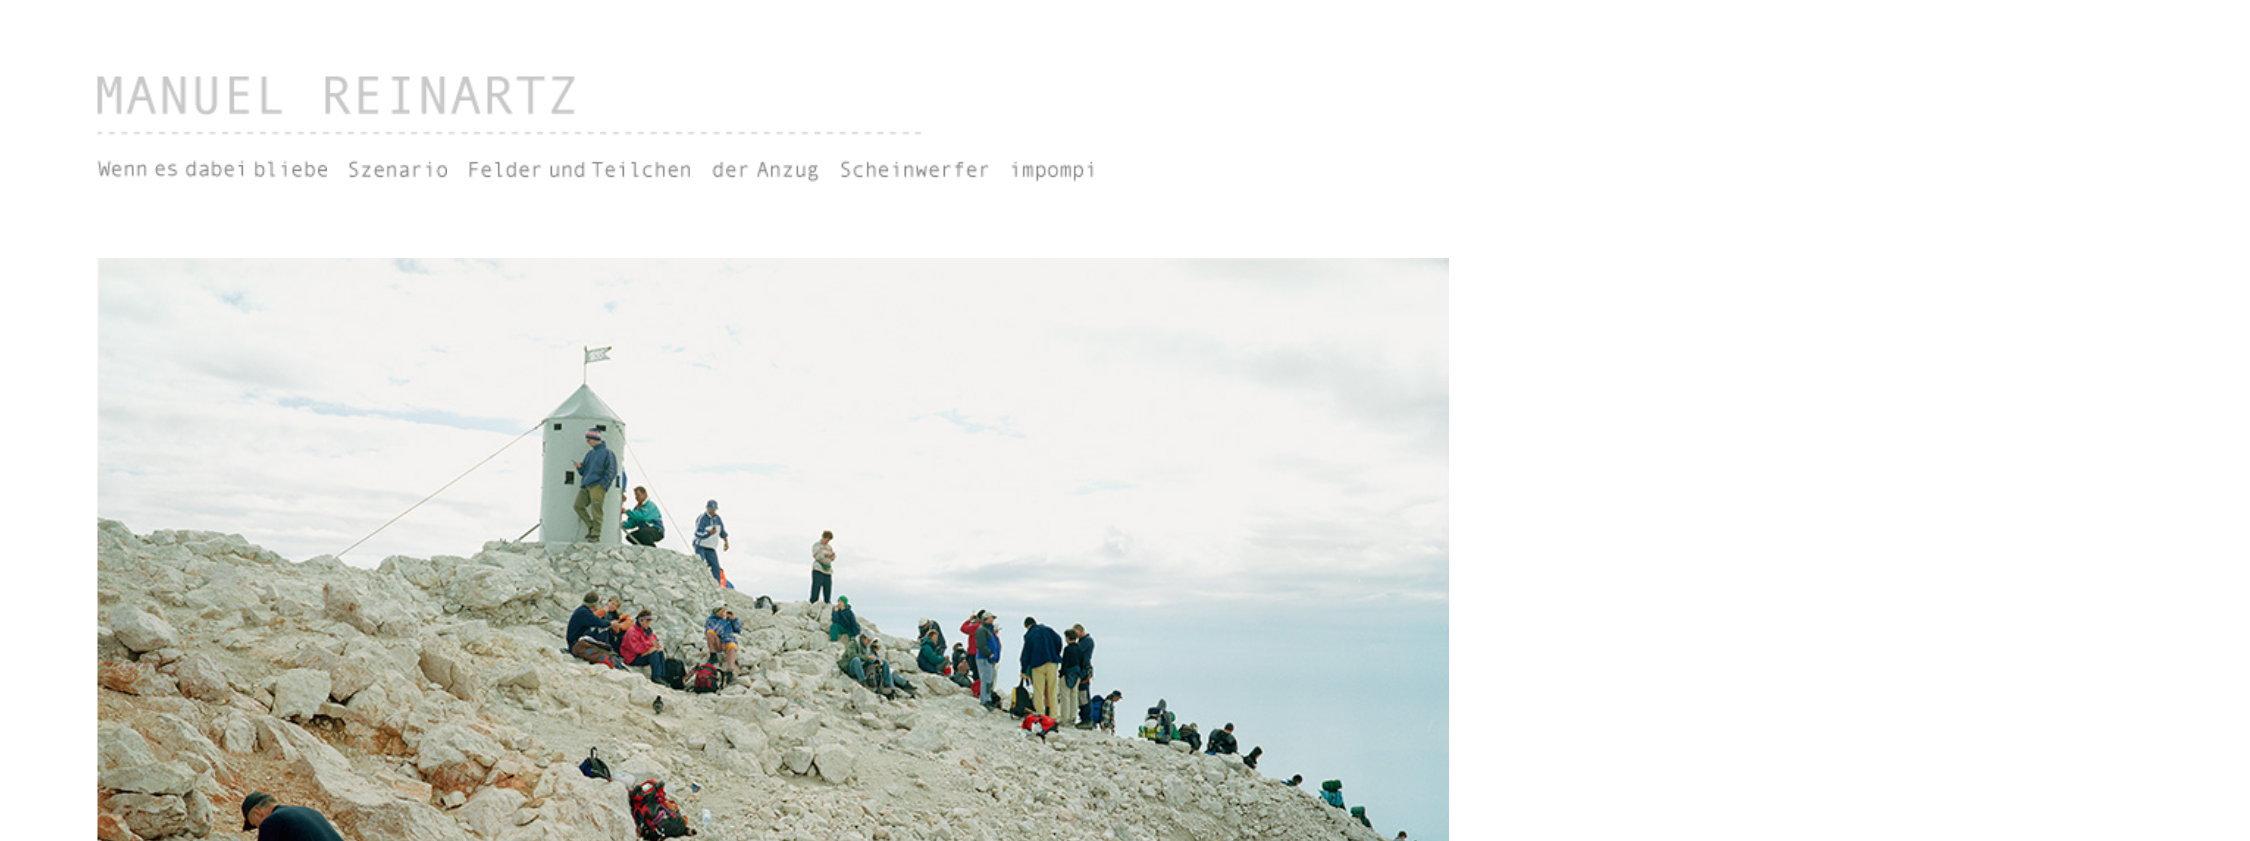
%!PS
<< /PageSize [2250 841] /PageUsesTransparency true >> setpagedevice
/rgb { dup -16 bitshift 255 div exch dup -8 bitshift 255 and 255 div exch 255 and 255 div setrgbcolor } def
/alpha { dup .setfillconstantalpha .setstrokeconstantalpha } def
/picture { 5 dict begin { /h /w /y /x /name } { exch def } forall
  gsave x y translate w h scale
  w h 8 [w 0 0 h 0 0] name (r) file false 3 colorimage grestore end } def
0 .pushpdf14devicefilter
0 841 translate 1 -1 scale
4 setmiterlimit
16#FFFFFF rgb
0 0 2250 841 rectfill
(pic1.raw) 97 76 825 59 picture
(pic2.raw) 97 160 230 18 picture
(pic3.raw) 349 160 98 18 picture
(pic4.raw) 469 160 221 18 picture
(pic5.raw) 712 161 107 21 picture
(pic6.raw) 841 160 148 18 picture
(pic7.raw) 1011 160 83 22 picture
0.5 alpha
988 165 1 3 rectfill
1 alpha
(pic8.raw) 97 258 1352 583 picture
.poppdf14devicefilter showpage
